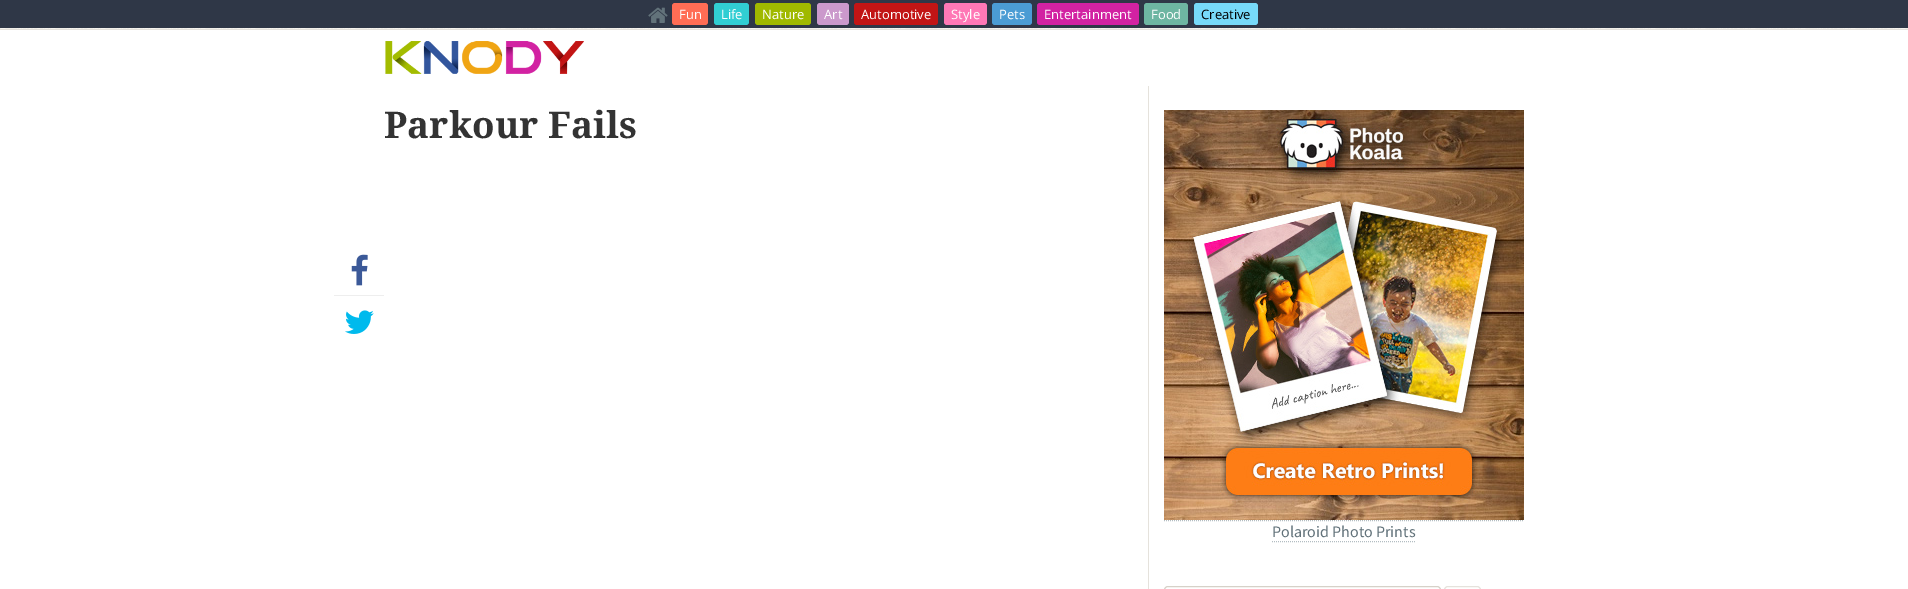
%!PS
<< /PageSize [1908 589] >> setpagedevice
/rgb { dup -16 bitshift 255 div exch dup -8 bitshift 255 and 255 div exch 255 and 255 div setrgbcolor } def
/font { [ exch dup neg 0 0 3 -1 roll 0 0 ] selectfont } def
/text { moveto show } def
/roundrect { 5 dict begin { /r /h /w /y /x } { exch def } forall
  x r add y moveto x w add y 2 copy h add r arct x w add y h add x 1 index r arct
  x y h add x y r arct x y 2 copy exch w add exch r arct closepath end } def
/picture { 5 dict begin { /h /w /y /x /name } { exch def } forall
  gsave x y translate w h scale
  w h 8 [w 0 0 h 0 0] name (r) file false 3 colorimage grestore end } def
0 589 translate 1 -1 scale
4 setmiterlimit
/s1 { /OpenSans-Regular 13 font 16#FFFFFF rgb } def
/s2 { /OpenSans-Regular 13 font 16#000000 rgb } def
/s3 { /DroidSerif-Bold 36.75 font 16#333333 rgb } def
/s4 { /SourceSansPro-Regular 16 font 16#62727A rgb } def
16#FFFFFF rgb
0 0 1908 589 rectfill
16#2F3747 rgb
0 0 1908 28 rectfill
(pic1.raw) 648 7 20 16 picture
16#FF6D55 rgb
672 3 36 22 3 roundrect fill
s1
(Fun) 679 19 text
16#31CED3 rgb
714 3 35 22 3 roundrect fill
s1
(Life) 721 19 text
16#A0B900 rgb
755 3 56 22 3 roundrect fill
s1
(Nature) 762 19 text
16#CB99CC rgb
817 3 32 22 3 roundrect fill
s1
(Art) 824 19 text
16#C21515 rgb
854 3 84 22 3 roundrect fill
s1
(Automotive) 861 19 text
16#FF78B6 rgb
944 3 43 22 3 roundrect fill
s1
(Style) 951 19 text
16#4B9CD4 rgb
992 3 40 22 3 roundrect fill
s1
(Pets) 999 19 text
16#D222A2 rgb
1037 3 102 22 3 roundrect fill
s1
(Entertainment) 1044 19 text
16#6EB6A2 rgb
1144 3 44 22 3 roundrect fill
s1
(Food) 1151 19 text
16#77DAF9 rgb
1194 3 64 22 3 roundrect fill
s2
(Creative) 1201 19 text
(pic2.raw) 0 28 1908 1 picture
16#E5E2DC rgb
0 29 1908 1 rectfill
(pic3.raw) 385 41 199 33 picture
1148 86 1 503 rectfill
s3
(Parkour Fails) 384 138 text
16#EEEEEE rgb
334 295 50 1 rectfill
(pic4.raw) 351 254 17 32 picture
(pic5.raw) 345 310 29 24 picture
(pic6.raw) 1164 110 360 410 picture
s4
(Polaroid Photo Prints) 1272 537 text
16#B3BDC2 rgb
[1 1] 0 setdash
1164 520.5 moveto 1524 520.5 lineto stroke
1272 541.5 moveto 1416 541.5 lineto stroke
16#D6D1C8 rgb
[] 0 setdash
1164.5 586.5 276 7 3.5 roundrect stroke
16#E5E2DC rgb
1444.5 586.5 36 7 3.5 roundrect stroke
showpage
